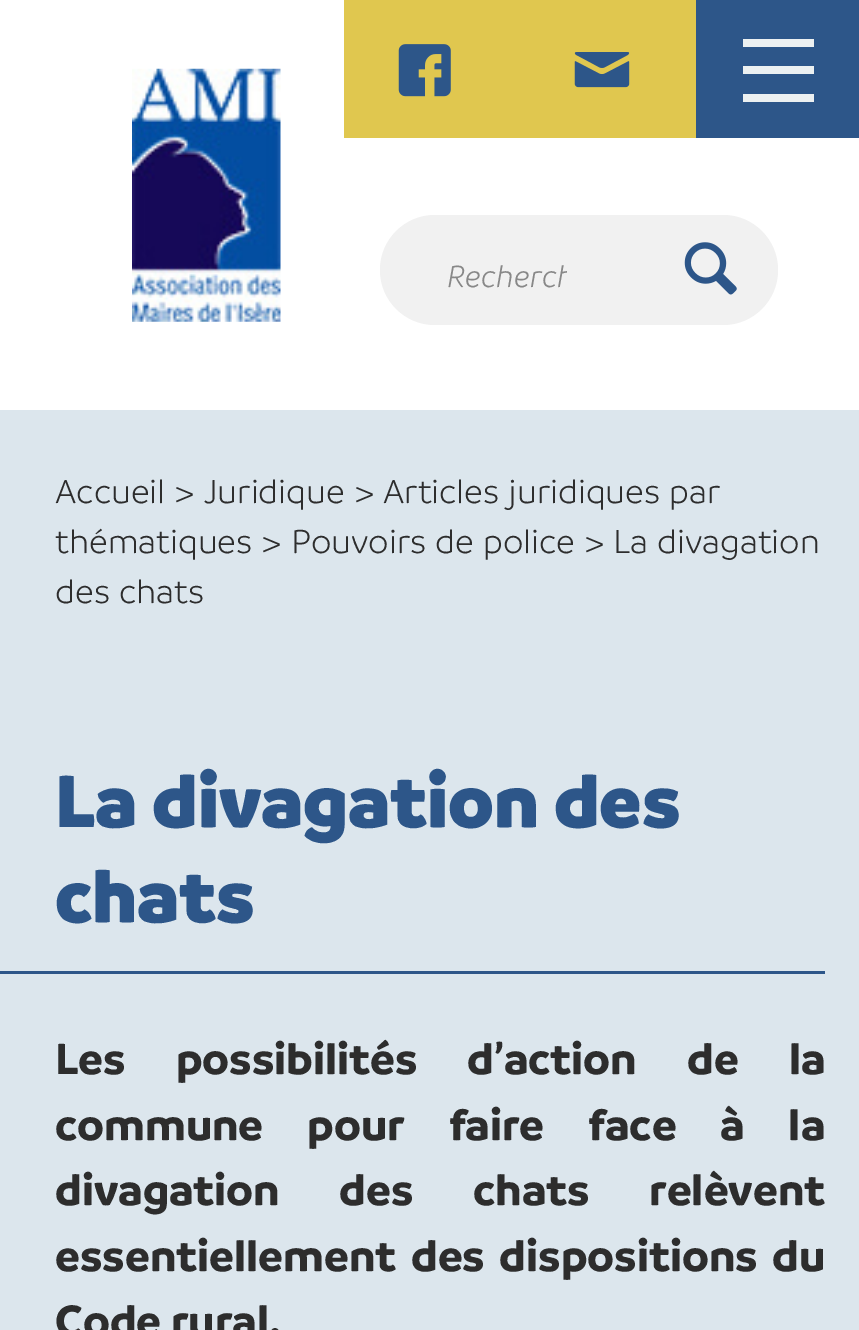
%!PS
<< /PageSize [859 1330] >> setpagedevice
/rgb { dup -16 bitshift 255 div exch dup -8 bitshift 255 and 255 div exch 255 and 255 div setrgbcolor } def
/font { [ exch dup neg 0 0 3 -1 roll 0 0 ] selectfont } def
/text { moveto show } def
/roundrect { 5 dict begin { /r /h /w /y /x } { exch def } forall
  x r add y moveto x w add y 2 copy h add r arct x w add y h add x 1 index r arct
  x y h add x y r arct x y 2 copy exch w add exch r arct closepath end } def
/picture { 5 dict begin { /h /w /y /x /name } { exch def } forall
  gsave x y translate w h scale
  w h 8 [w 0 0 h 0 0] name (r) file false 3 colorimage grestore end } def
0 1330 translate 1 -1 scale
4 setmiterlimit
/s1 { /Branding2-Light 33 font 16#888888 rgb } def
/s2 { /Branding-Light 35.75 font 16#2D2D2D rgb } def
/s3 { /Branding-Black 79.25 font 16#2D5689 rgb } def
/s4 { /Branding-Bold 46.75 font 16#2D2D2D rgb } def
16#FFFFFF rgb
0 0 859 1330 rectfill
16#E0C74F rgb
344 0 352 138 rectfill
(pic1.raw) 398 44 53 53 picture
(pic2.raw) 574 52 56 36 picture
16#2D5689 rgb
696 0 163 138 rectfill
16#ECF0F1 rgb
743 39 71 8 rectfill
743 66 71 8 rectfill
743 94 71 8 rectfill
(pic3.raw) 132 68 149 254 picture
16#F1F1F1 rgb
380 215 398 110 55 roundrect fill
gsave
448 253 119 41 rectclip
s1
(Recherch) 447 287 text
grestore
(pic4.raw) 684 242 53 53 picture
16#DCE6ED rgb
0 410 859 920 rectfill
s2
(Accueil > Juridique > Articles juridiques par) 55 503 text
(thématiques > Pouvoirs de police > La divagation) 55 553 text
(des chats) 55 603 text
s3
(La divagation des) 55 827 text
(chats) 55 922 text
0 971 825 3 rectfill
/Branding-Bold 46.75 font
16#2D2D2D rgb
55 1074 moveto 40.5 0 32 (Les possibilités d’action de la) widthshow
55 1140 moveto 34.25 0 32 (commune pour faire face à la) widthshow
55 1205 moveto 50 0 32 (divagation des chats relèvent) widthshow
55 1271 moveto 5 0 32 (essentiellement des dispositions du) widthshow
(Code rural.) 55 1336 text
showpage
